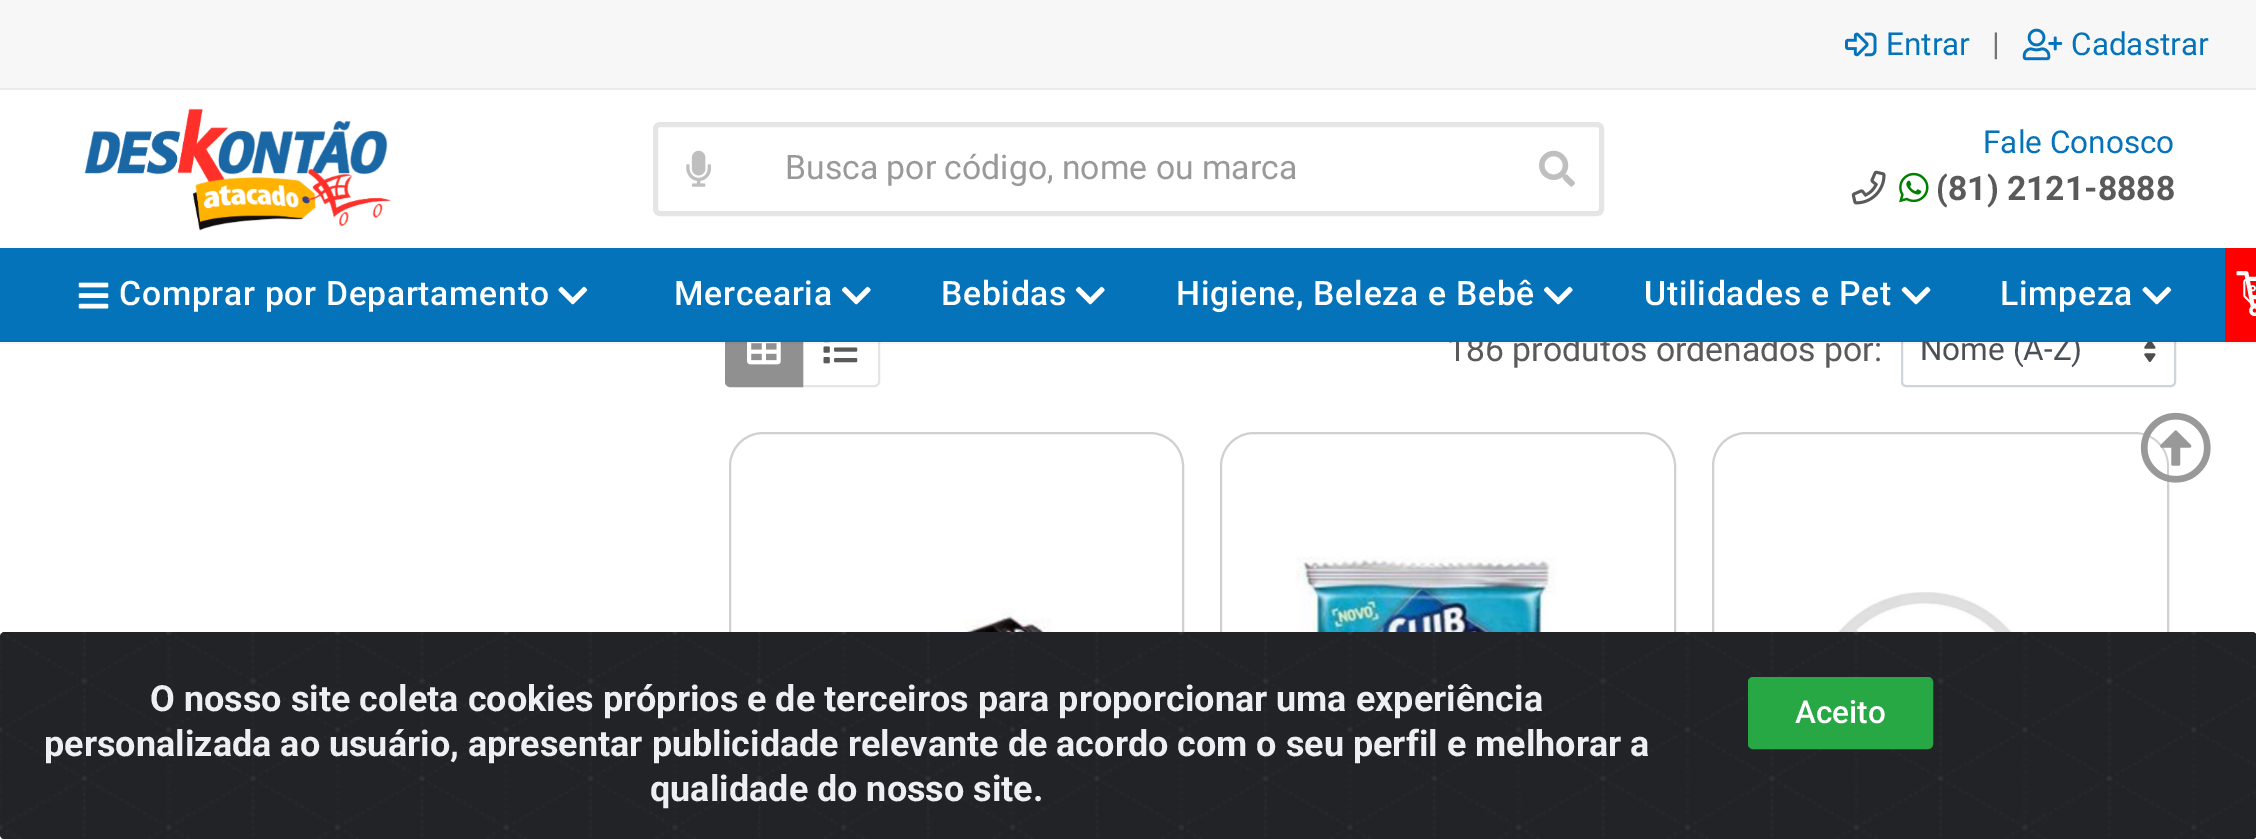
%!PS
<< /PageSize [2256 839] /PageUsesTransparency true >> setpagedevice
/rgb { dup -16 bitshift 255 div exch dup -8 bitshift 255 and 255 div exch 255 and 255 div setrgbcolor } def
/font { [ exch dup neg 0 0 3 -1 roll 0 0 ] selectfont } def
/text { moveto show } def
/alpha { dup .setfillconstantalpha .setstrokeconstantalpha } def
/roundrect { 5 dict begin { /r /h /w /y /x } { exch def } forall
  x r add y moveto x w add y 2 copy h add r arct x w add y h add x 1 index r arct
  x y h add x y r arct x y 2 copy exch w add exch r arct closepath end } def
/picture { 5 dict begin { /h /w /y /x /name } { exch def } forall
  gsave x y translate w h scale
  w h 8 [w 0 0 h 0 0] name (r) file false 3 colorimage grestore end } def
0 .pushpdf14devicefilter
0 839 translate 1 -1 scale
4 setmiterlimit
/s1 { /Roboto-Regular 31.5 font 16#0573BA rgb } def
/s2 { /Roboto-Regular 31.5 font 16#737373 rgb } def
/s3 { /Roboto-Regular 33.75 font 16#999999 rgb } def
/s4 { /Roboto-Bold 33.75 font 16#5A5A5A rgb } def
/s5 { /Roboto-Regular 33.75 font 16#5A5A5A rgb } def
/s6 { /Roboto-Regular 31.5 font 16#495057 rgb } def
/s7 { /Roboto-Bold 36 font 16#ECF0F1 rgb } def
/s8 { /Roboto-Medium 31.5 font 16#FFFFFF rgb } def
16#FFFFFF rgb
0 0 2256 839 rectfill
16#F7F7F7 rgb
0 0 2256 88 rectfill
16#EBEBEB rgb
0 88 2256 2 rectfill
(pic1.raw) 1845 32 32 25 picture
s1
(Entrar) 1886 55 text
s2
(|) 1992 55 text
(pic2.raw) 2022 28 41 33 picture
s1
(Cadastrar) 2071 55 text
(pic3.raw) 84 108 307 123 picture
16#E5E5E5 rgb
5 setlinewidth
655.5 124.5 946 89 4.5 roundrect stroke
(pic4.raw) 686 150 25 37 picture
s3
(Busca por código, nome ou marca) 785 179 text
(pic5.raw) 1539 150 36 37 picture
s1
(Fale Conosco) 1983 153 text
(pic6.raw) 1851 170 35 35 picture
(pic7.raw) 1899 172 30 31 picture
s4
(\(81\) 2121-8888) 1936 200 text
16#E5E5E5 rgb
2 setlinewidth
802 316 moveto 875 316 lineto 877 316 879 318 879 320 curveto 879 382 lineto 879 384 877 386 875 386 curveto 802 386 lineto closepath stroke
16#909090 rgb
730 316 moveto 802 316 lineto 802 386 lineto 730 386 lineto 728 386 726 384 726 382 curveto 726 320 lineto 726 318 728 316 730 316 curveto closepath gsave fill grestore
stroke
(pic14.raw) 747 342 34 23 picture
(pic15.raw) 823 342 35 22 picture
(pic16.raw) 2144 342 12 20 picture
16#CED4DA rgb
1902 316 273 70 4 roundrect stroke
0.04 alpha
16#000000 rgb
0 342 moveto 0 344 lineto 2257 344 lineto 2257 250 lineto 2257 342 lineto closepath fill
1 alpha
s5
(186 produtos ordenados por:) 1447 361 text
s6
(Nome \(A-Z\)) 1920 360 text
16#0573BA rgb
0 248 2225 92 rectfill
16#056EB3 rgb
0 340 2225 2 rectfill
(pic8.raw) 78 282 31 27 picture
/Roboto-Medium 33.75 font
16#FFFFFF rgb
119 305 moveto 0.7 0 (Comprar por Departamento) ashow
(pic9.raw) 558 286 30 19 picture
674 305 moveto 0.7 0 (Mercearia) ashow
(pic10.raw) 841 286 30 19 picture
941 305 moveto 0.7 0 (Bebidas) ashow
(pic10.raw) 1075 286 30 19 picture
1176 305 moveto 0.7 0 (Higiene, Beleza e Bebê) ashow
(pic10.raw) 1543 286 30 19 picture
1644 305 moveto 0.7 0 (Utilidades e Pet) ashow
(pic11.raw) 1901 286 30 19 picture
2000 305 moveto 0.7 0 (Limpeza) ashow
(pic9.raw) 2142 286 30 19 picture
16#FF0000 rgb
2225 248 31 94 rectfill
(pic13.raw) 2236 271 20 46 picture
(pic12.raw) 2243 278 13 32 picture
16#D1CFCF rgb
730 433 453 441 33 roundrect stroke
(pic17.raw) 779 608 321 24 picture
1221 433 454 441 33 roundrect stroke
(pic18.raw) 1295 556 261 76 picture
1713 433 455 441 33 roundrect stroke
(pic19.raw) 1811 592 228 40 picture
(pic20.raw) 0 632 2256 207 picture
s7
(O nosso site coleta cookies próprios e de terceiros para proporcionar uma experiência) 150 711 text
(personalizada ao usuário, apresentar publicidade relevante de acordo com o seu perfil e melhorar a) 44 756 text
(qualidade do nosso site.) 650 801 text
16#28A745 rgb
1749 678 183 70 4 roundrect gsave fill grestore
stroke
s8
(Aceito) 1795 723 text
(pic21.raw) 2140 412 71 71 picture
.poppdf14devicefilter showpage
